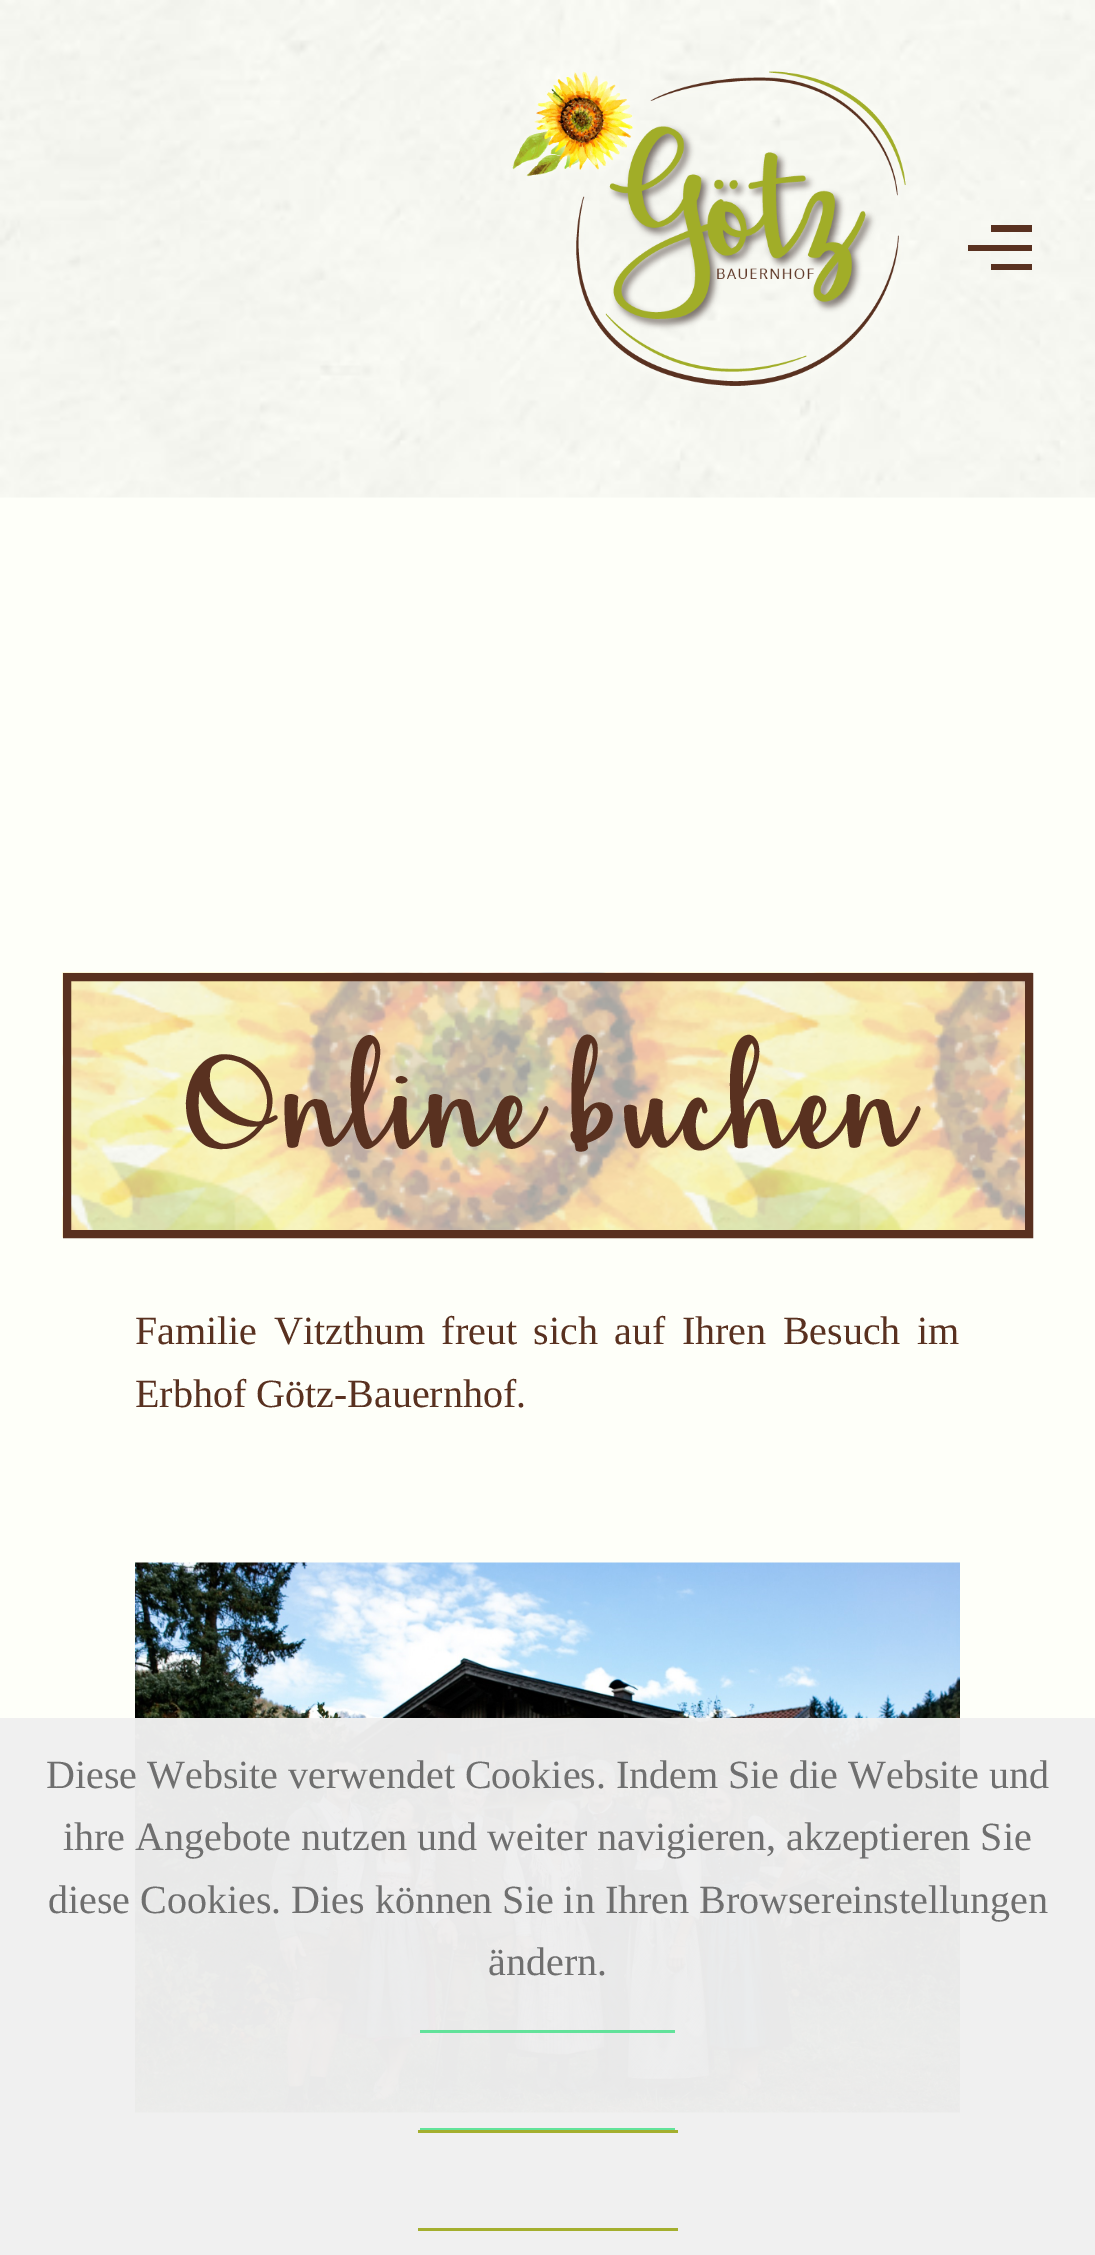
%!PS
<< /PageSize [1095 2255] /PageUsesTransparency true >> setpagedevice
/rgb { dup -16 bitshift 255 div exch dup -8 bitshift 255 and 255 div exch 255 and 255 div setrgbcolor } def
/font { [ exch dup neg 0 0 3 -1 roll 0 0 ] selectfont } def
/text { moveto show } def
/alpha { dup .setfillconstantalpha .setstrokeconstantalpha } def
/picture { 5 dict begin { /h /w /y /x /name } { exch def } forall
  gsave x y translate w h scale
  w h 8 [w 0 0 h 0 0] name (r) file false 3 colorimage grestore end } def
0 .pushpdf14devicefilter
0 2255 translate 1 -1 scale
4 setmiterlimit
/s1 { /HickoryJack-Regular 210 font 16#593120 rgb } def
/s2 { /LiberationSerif-Regular 40 font 16#593120 rgb } def
/s3 { /LiberationSerif-Regular 40 font 16#6F6F6F rgb } def
16#FEFFF9 rgb
0 0 1095 2255 rectfill
(pic1.raw) 0 0 1095 498 picture
(pic2.raw) 511 71 395 315 picture
16#593120 rgb
991 225 moveto 1032 225 lineto 1032 232 lineto 991 232 lineto closepath 968 245 moveto 1032 245 lineto 1032 251 lineto 968 251 lineto closepath 991 264 moveto 1032 264 lineto 1032 270 lineto 991 270 lineto closepath fill
(pic3.raw) 62 972 971 266 picture
8 setlinewidth
67 977 962 257 rectstroke
s1
(Online buchen) 185 1149 text
/LiberationSerif-Regular 40 font
135 1344 moveto 6.5 0 32 (Familie Vitzthum freut sich auf Ihren Besuch im) widthshow
(Erbhof Götz-Bauernhof.) 135 1407 text
(pic4.raw) 135 1562 825 551 picture
0.97 alpha
16#F0F0F0 rgb
0 1718 1095 537 rectfill
1 alpha
s3
(Diese Website verwendet Cookies. Indem Sie die Website und) 46 1788 text
(ihre Angebote nutzen und weiter navigieren, akzeptieren Sie) 63 1850 text
(diese Cookies. Dies können Sie in Ihren Browsereinstellungen) 48 1913 text
(ändern.) 488 1975 text
0.97 alpha
16#5DE297 rgb
420 2030 255 3 rectfill
1 alpha
16#62E39A rgb
420 2128 255 2 rectfill
16#A4AF2E rgb
418 2130 260 3 rectfill
418 2228 260 3 rectfill
.poppdf14devicefilter showpage
